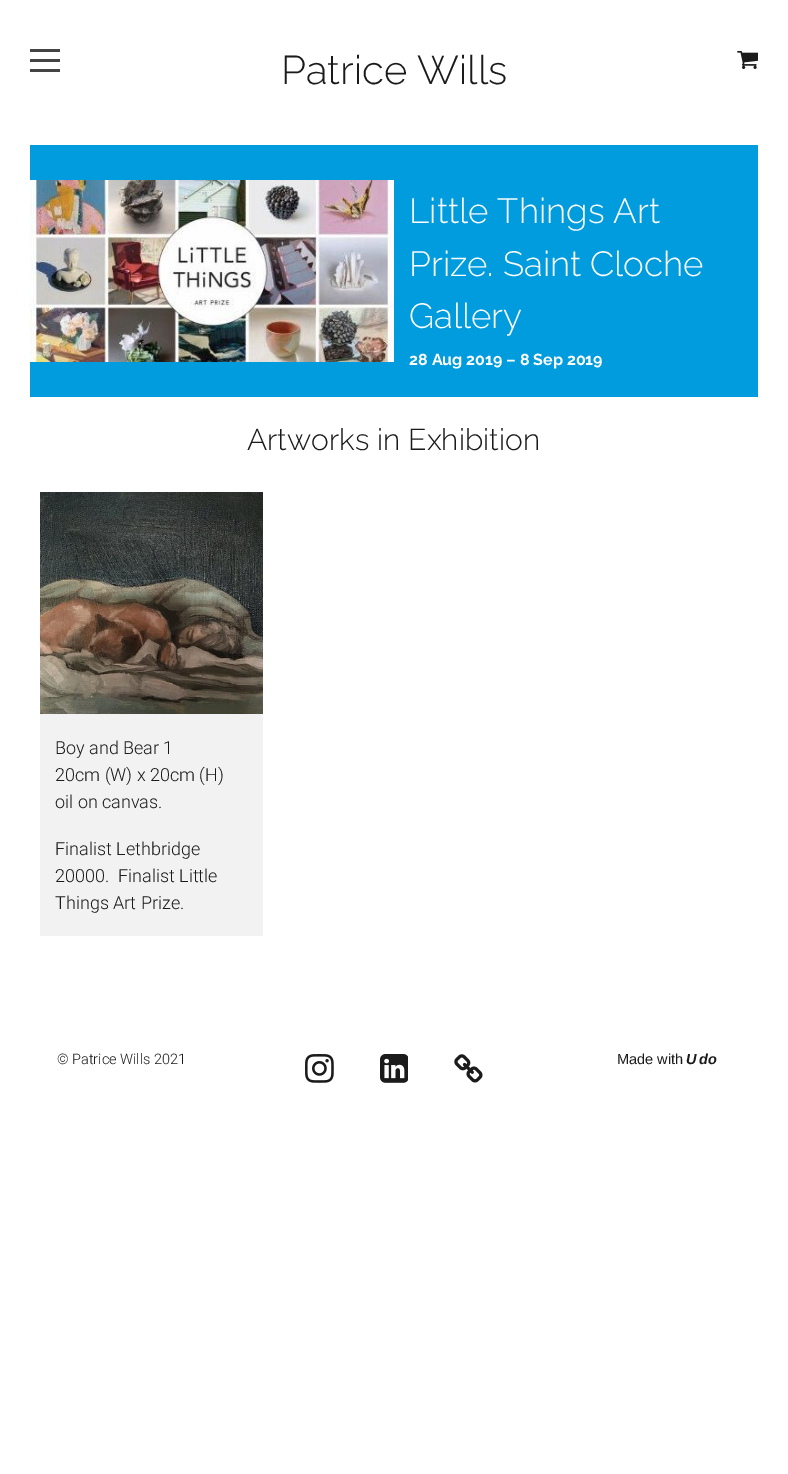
%!PS
<< /PageSize [788 1474] >> setpagedevice
/rgb { dup -16 bitshift 255 div exch dup -8 bitshift 255 and 255 div exch 255 and 255 div setrgbcolor } def
/font { [ exch dup neg 0 0 3 -1 roll 0 0 ] selectfont } def
/text { moveto show } def
/picture { 5 dict begin { /h /w /y /x /name } { exch def } forall
  gsave x y translate w h scale
  w h 8 [w 0 0 h 0 0] name (r) file false 3 colorimage grestore end } def
0 1474 translate 1 -1 scale
4 setmiterlimit
/s1 { /Raleway-Thin 40 font 16#1B1B1B rgb } def
/s2 { /Raleway-Thin 35 font 16#FFFFFF rgb } def
/s3 { /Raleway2-Thin 16 font 16#FFFFFF rgb } def
/s4 { /Raleway-Thin 30 font 16#1B1B1B rgb } def
/s5 { /Roboto-Light 18 font 16#1B1B1B rgb } def
/s6 { /Roboto-Light 14.5 font 16#1B1B1B rgb } def
/s7 { /LiberationSans-Regular 14.5 font 16#1B1B1B rgb } def
/s8 { /LiberationSans-BoldItalic 14.5 font 16#1B1B1B rgb } def
16#FFFFFF rgb
0 0 788 1474 rectfill
16#444444 rgb
30 49 30 3 rectfill
30 59 30 3 rectfill
30 69 30 3 rectfill
s1
(Patrice Wills) 281 84 text
(pic1.raw) 737 51 21 18 picture
16#009CDE rgb
30 145 728 252 rectfill
(pic2.raw) 30 180 364 182 picture
s2
(Little Things Art) 409 223 text
(Prize. Saint Cloche) 409 276 text
(Gallery) 409 328 text
s3
(28 Aug 2019 – 8 Sep 2019) 409 365 text
s4
(Artworks in Exhibition) 247 450 text
(pic3.raw) 40 492 223 222 picture
16#F2F2F2 rgb
40 714 223 222 rectfill
s5
(Boy and Bear 1) 55 754 text
(20cm \(W\) x 20cm \(H\)) 55 781 text
(oil on canvas.) 55 808 text
(Finalist Lethbridge) 55 855 text
(20000.  Finalist Little) 55 882 text
(Things Art Prize.) 55 909 text
s6
(© Patrice Wills 2021) 57 1064 text
(pic4.raw) 305 1054 29 29 picture
(pic5.raw) 380 1054 28 29 picture
(pic6.raw) 454 1054 29 29 picture
s7
(Made with) 617 1064 text
s8
(U do) 686 1064 text
showpage
